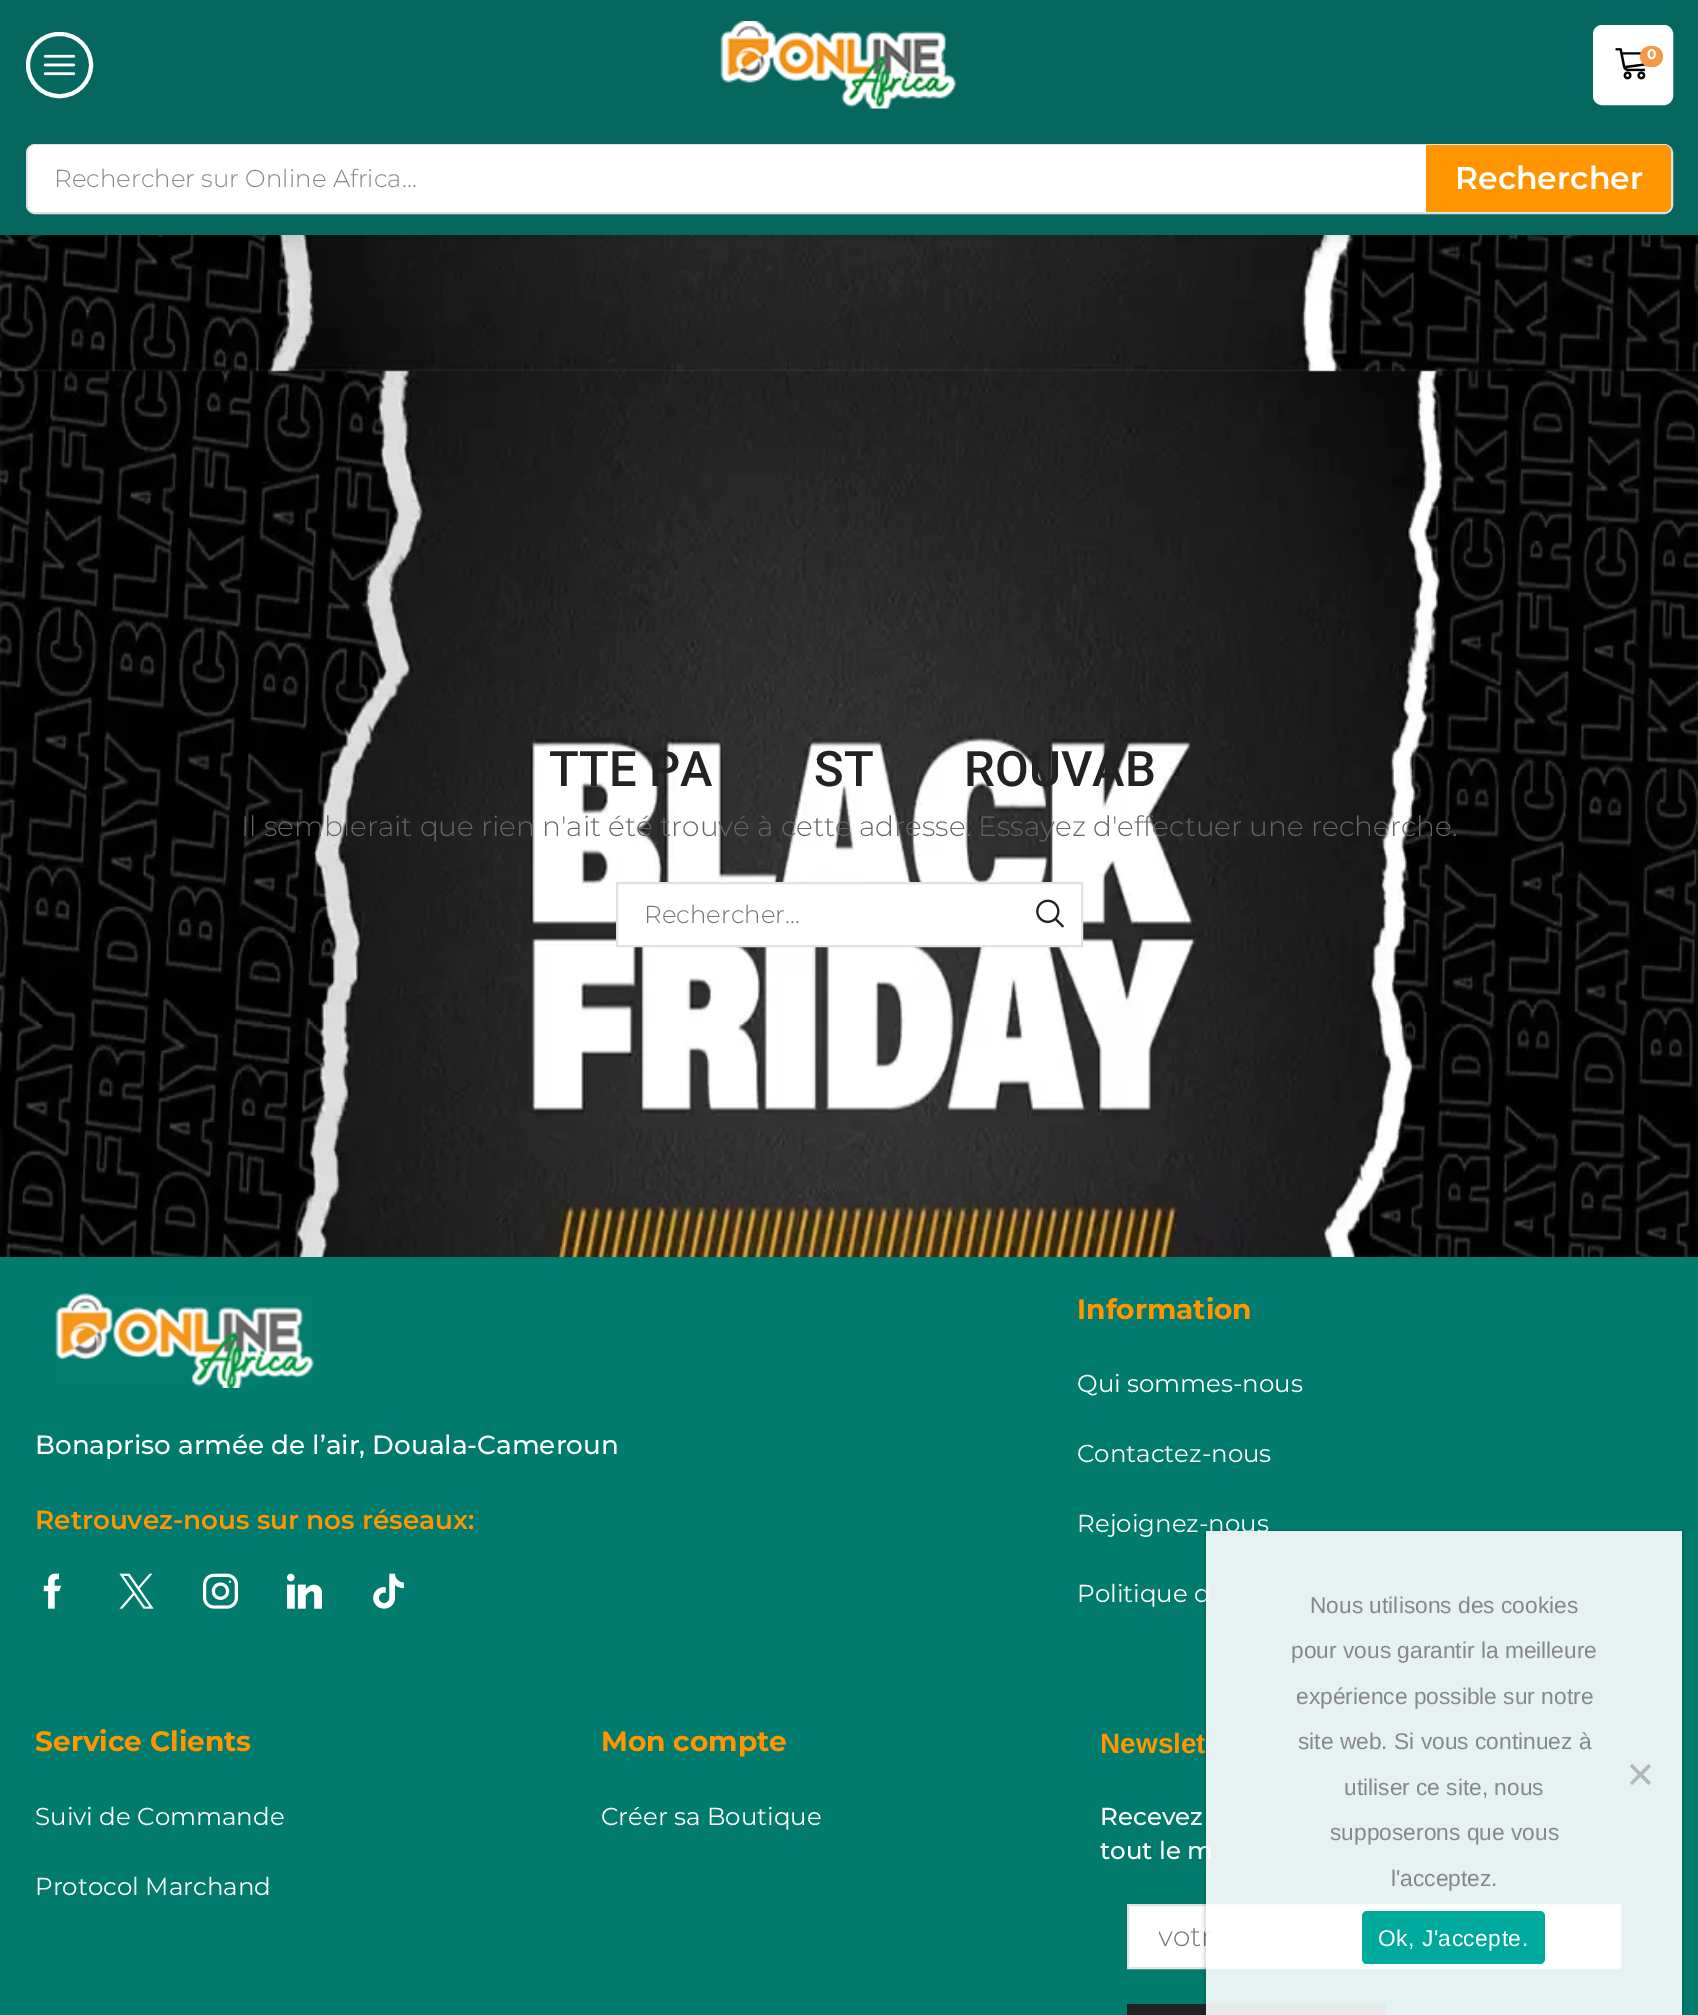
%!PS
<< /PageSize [1698 2015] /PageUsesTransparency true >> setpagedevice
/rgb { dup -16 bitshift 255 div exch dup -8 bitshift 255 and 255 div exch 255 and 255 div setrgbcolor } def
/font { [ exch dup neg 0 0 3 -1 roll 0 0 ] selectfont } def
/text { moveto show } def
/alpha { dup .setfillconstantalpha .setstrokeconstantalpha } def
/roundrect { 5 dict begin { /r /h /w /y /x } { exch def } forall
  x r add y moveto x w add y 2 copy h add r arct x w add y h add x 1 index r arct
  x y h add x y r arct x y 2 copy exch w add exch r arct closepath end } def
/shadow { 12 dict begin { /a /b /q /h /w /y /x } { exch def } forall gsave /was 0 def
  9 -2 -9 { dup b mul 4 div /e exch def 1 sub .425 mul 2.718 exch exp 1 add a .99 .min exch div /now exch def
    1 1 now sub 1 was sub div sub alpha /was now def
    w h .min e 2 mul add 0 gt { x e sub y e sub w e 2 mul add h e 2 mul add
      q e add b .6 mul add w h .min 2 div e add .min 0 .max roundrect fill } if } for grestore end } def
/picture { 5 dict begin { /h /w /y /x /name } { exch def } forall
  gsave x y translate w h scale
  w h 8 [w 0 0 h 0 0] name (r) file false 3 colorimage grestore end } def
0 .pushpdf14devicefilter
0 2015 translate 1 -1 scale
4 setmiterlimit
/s1 { /Montserrat-Bold 14 font 16#FFFFFF rgb } def
/s2 { /Montserrat-Light 24.5 font 16#888888 rgb } def
/s3 { /Montserrat-SemiBold 31.5 font 16#FFFFFF rgb } def
/s4 { /Roboto-Medium 49 font 16#222222 rgb } def
/s5 { /Montserrat-Light 28 font 16#666666 rgb } def
/s6 { /Montserrat-Light 24.5 font 16#757575 rgb } def
/s7 { /Montserrat-Medium 26.25 font 16#FFFFFF rgb } def
/s8 { /Montserrat-SemiBold 26.25 font 16#FF9500 rgb } def
/s9 { /Montserrat-Bold 28 font 16#FF9500 rgb } def
/s10 { /Montserrat-Regular 24.5 font 16#FFFFFF rgb } def
/s11 { /LiberationSans-Bold 28 font 16#FF9500 rgb } def
/s12 { /Montserrat-Medium 24.5 font 16#FFFFFF rgb } def
/s13 { /Montserrat-Light 28 font 16#757575 rgb } def
/s14 { /LiberationSans-Regular 22.75 font 16#888888 rgb } def
16#FFFFFF rgb
0 0 1698 2015 rectfill
(pic1.raw) 0 235 1698 1022 picture
16#000000 rgb
4 0 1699 235 0 10.5 0.15 shadow
16#066761 rgb
0 0 1698 235 rectfill
16#FFFFFF rgb
4 setlinewidth
28 34 63 62 31 roundrect stroke
(pic2.raw) 43 54 33 22 picture
(pic3.raw) 720 21 236 88 picture
1595 27 76 76 7 roundrect gsave fill grestore
stroke
(pic4.raw) 1615 48 31 32 picture
16#F69946 rgb
1640 46 23 21 10.5 roundrect fill
s1
(0) 1647 59 text
16#E1E1E1 rgb
2 setlinewidth
27 145 1645 68 8 roundrect stroke
16#FFFFFF rgb
35 145 moveto 1426 145 lineto 1426 212 lineto 35 212 lineto 31 212 28 209 28 205 curveto 28 152 lineto 28 148 31 145 35 145 curveto closepath fill
s2
(Rechercher sur Online Africa...) 54 187 text
16#FF9500 rgb
1426 145 moveto 1664 145 lineto 1668 145 1671 148 1671 152 curveto 1671 205 lineto 1671 209 1668 212 1664 212 curveto 1426 212 lineto closepath fill
s3
(Rechercher) 1455 189 text
s4
(TTE PA) 549 786 text
(ST) 814 786 text
(ROUVAB) 964 786 text
s5
(Il semblerait que rien n'ait été trouvé à cette adresse. Essayez d'effectuer une recherche.) 241 836 text
16#FFFFFF rgb
617 883 moveto 1082 883 lineto 1082 946 lineto 617 946 lineto closepath gsave fill grestore
16#E1E1E1 rgb
stroke
s6
(Rechercher...) 644 923 text
(pic5.raw) 1036 899 28 29 picture
16#007B6D rgb
0 1257 1698 758 rectfill
(pic6.raw) 55 1293 259 95 picture
s7
(Bonapriso armée de l’air, Douala-Cameroun) 35 1454 text
s8
(Retrouvez-nous sur nos réseaux:) 35 1529 text
(pic7.raw) 43 1573 19 36 picture
(pic8.raw) 119 1573 35 36 picture
(pic9.raw) 203 1573 35 36 picture
(pic10.raw) 287 1573 35 36 picture
(pic11.raw) 373 1573 31 36 picture
s9
(Information) 1077 1319 text
s10
(Qui sommes-nous) 1077 1392 text
(Contactez-nous) 1077 1462 text
(Rejoignez-nous) 1077 1532 text
(Politique d) 1077 1602 text
s9
(Service Clients) 35 1751 text
s10
(Suivi de Commande) 35 1825 text
(Protocol Marchand) 35 1895 text
s9
(Mon compte) 601 1751 text
s10
(Créer sa Boutique) 601 1825 text
s11
(Newslet) 1100 1753 text
s12
(Recevez) 1100 1825 text
(tout le m) 1100 1859 text
1128 1905 moveto 1620 1905 lineto 1620 1968 lineto 1128 1968 lineto closepath gsave fill grestore
16#E1E1E1 rgb
stroke
gsave
1159 1920 430 33 rectclip
s13
(votr) 1158 1946 text
grestore
16#222222 rgb
1127 2004 259 11 rectfill
gsave
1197 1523 moveto 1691 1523 lineto 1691 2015 lineto 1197 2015 lineto closepath 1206 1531 moveto 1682 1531 lineto 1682 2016 lineto 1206 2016 lineto closepath eoclip newpath
16#000000 rgb
1204 1530 480 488 0 2 0.15 shadow
grestore
0.9 alpha
16#FFFFFF rgb
1206 1531 476 484 rectfill
1 alpha
s14
(Nous utilisons des cookies) 1310 1613 text
(pour vous garantir la meilleure) 1291 1658 text
(expérience possible sur notre) 1296 1704 text
(site web. Si vous continuez à) 1298 1749 text
(utiliser ce site, nous) 1344 1795 text
(supposerons que vous) 1330 1840 text
(l'acceptez.) 1391 1886 text
16#B3B9B8 rgb
1648.5 1764 moveto 1651 1766.5 lineto 1632 1785 lineto 1630 1782.5 lineto closepath fill
1630 1766.5 moveto 1632 1764 lineto 1651 1782.5 lineto 1648.5 1785 lineto closepath fill
16#00A99D rgb
1362 1911 183 53 5 roundrect fill
16#FFFFFF rgb
1378 1946 moveto 0.5 0 (Ok, J'accepte.) ashow
.poppdf14devicefilter showpage
